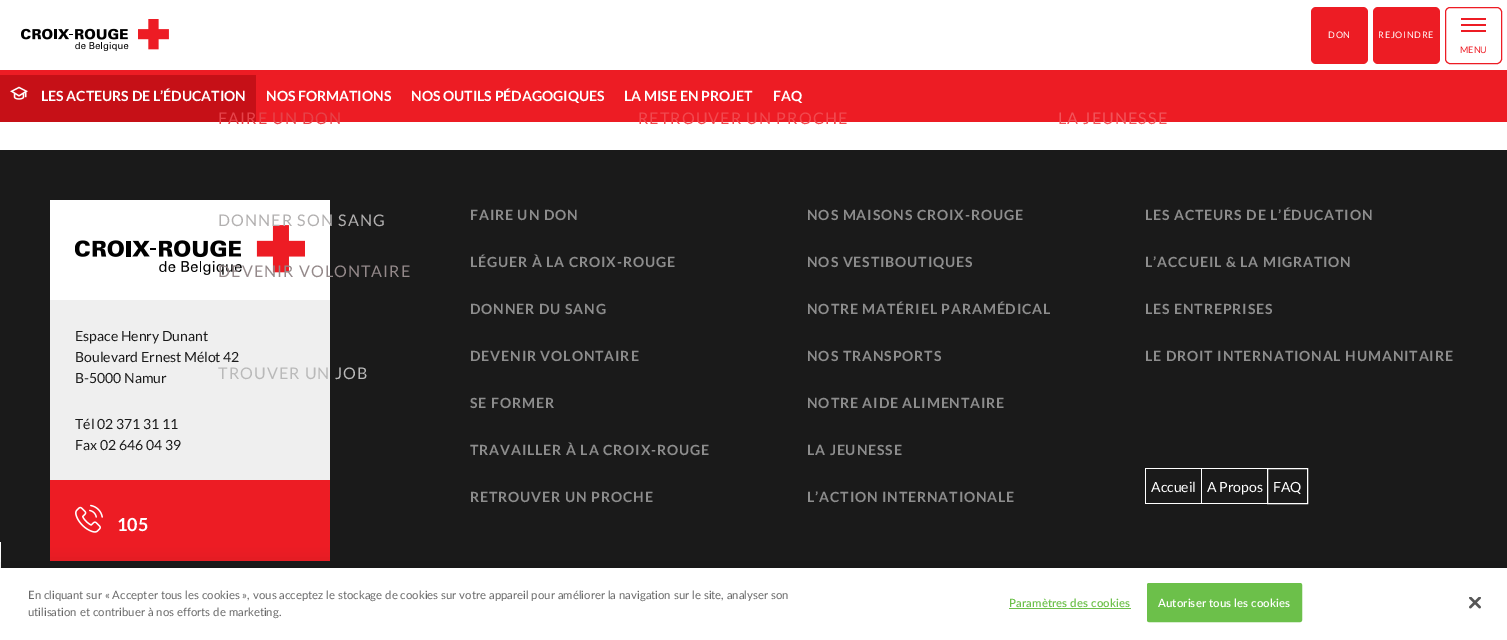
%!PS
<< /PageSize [1507 640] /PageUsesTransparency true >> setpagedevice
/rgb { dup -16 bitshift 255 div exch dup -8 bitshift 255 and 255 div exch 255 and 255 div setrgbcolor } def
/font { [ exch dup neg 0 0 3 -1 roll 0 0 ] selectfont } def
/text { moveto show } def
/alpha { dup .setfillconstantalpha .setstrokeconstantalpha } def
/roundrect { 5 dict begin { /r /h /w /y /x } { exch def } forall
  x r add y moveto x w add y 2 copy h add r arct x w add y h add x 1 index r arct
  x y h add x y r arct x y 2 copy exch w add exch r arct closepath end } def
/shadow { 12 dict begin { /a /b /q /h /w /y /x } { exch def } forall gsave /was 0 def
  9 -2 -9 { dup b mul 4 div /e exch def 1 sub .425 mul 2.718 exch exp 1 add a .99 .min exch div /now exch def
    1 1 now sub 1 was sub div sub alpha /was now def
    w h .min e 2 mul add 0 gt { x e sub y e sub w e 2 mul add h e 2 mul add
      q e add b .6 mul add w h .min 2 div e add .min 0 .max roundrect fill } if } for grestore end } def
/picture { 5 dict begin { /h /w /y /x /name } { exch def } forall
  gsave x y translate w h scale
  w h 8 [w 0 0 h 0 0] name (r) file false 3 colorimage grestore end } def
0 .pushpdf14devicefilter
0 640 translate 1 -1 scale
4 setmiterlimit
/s1 { /Lato-Regular 9 font 16#ED1C24 rgb } def
/s2 { /Lato-Bold 14 font 16#FFFFFF rgb } def
/s3 { /Lato-Regular 14 font 16#1A1A1A rgb } def
/s4 { /Lato-Bold 18 font 16#FFFFFF rgb } def
/s5 { /Lato-Regular 14 font 16#FFFFFF rgb } def
/s6 { /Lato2-Regular 11.38 font 16#696969 rgb } def
16#FFFFFF rgb
0 0 1507 640 rectfill
16#ED1C24 rgb
0 70 1507 5 rectfill
(pic1.raw) 21 19 148 32 picture
1311 7 57 57 5 roundrect fill
/Lato-Regular 9 font
16#FFFFFF rgb
1328 38 moveto 0.75 0 (DON) ashow
16#ED1C24 rgb
1373 7 67 57 5 roundrect fill
16#FFFFFF rgb
1378 38 moveto 0.75 0 (REJOINDRE) ashow
16#ED1C24 rgb
1445.5 7.5 56 56 4.5 roundrect stroke
1461 24 25 2 rectfill
1461 18 25 2 rectfill
1461 30 25 2 rectfill
(MENU) 1460 53 text
256 75 1251 47 rectfill
16#C61017 rgb
0 75 256 47 rectfill
/Lato-Regular 16 font
16#E6434A rgb
218 124 moveto 1.1 0 (FAIRE UN DON) ashow
16#F1494F rgb
638 124 moveto 1.1 0 (RETROUVER UN PROCHE) ashow
16#F1545A rgb
1058 124 moveto 1.1 0 (LA JEUNESSE) ashow
16#1A1A1A rgb
0 150 1507 418 rectfill
16#FFFFFF rgb
50 200 280 100 rectfill
(pic3.raw) 75 225 230 50 picture
16#B2B0B0 rgb
218 226 moveto 1.1 0 (DONNER SON SANG) ashow
16#94898A rgb
218 277 moveto 1.1 0 (DEVENIR VOLONTAIRE) ashow
16#EFEFEF rgb
50 300 280 180 rectfill
16#B9B9B9 rgb
218 379 moveto 1.1 0 (TROUVER UN JOB) ashow
16#FFFFFF rgb
0 542 1 26 rectfill
(pic2.raw) 10 86 18 14 picture
s2
(LES ACTEURS DE L’ÉDUCATION) 41 101 text
(NOS FORMATIONS) 266 101 text
(NOS OUTILS PÉDAGOGIQUES) 411 101 text
(LA MISE EN PROJET) 624 101 text
(FAQ) 773 101 text
s3
(Espace Henry Dunant) 75 341 text
(Boulevard Ernest Mélot 42) 75 362 text
(B-5000 Namur) 75 383 text
(Tél 02 371 31 11) 75 429 text
(Fax 02 646 04 39) 75 450 text
16#ED1C24 rgb
50 480 280 81 rectfill
(pic4.raw) 75 504 28 29 picture
s4
(105) 117 531 text
/Lato-Bold 14 font
16#8D8D8D rgb
470 220 moveto 0.9 0 (FAIRE UN DON) ashow
807 220 moveto 0.9 0 (NOS MAISONS CROIX-ROUGE) ashow
1145 220 moveto 0.9 0 (LES ACTEURS DE L’ÉDUCATION) ashow
470 267 moveto 0.9 0 (LÉGUER À LA CROIX-ROUGE) ashow
807 267 moveto 0.9 0 (NOS VESTIBOUTIQUES) ashow
1145 267 moveto 0.9 0 (L’ACCUEIL & LA MIGRATION) ashow
470 314 moveto 0.9 0 (DONNER DU SANG) ashow
807 314 moveto 0.9 0 (NOTRE MATÉRIEL PARAMÉDICAL) ashow
1145 314 moveto 0.9 0 (LES ENTREPRISES) ashow
470 361 moveto 0.9 0 (DEVENIR VOLONTAIRE) ashow
807 361 moveto 0.9 0 (NOS TRANSPORTS) ashow
1145 361 moveto 0.9 0 (LE DROIT INTERNATIONAL HUMANITAIRE) ashow
16#FFFFFF rgb
1145 468 122 1 rectfill
1145 503 122 1 rectfill
1145 468 1 36 rectfill
s5
(Accueil) 1151 492 text
1201 468 1 36 rectfill
(A Propos) 1207 492 text
1267.5 468.5 40 35 rectstroke
(FAQ) 1273 492 text
/Lato-Bold 14 font
16#8D8D8D rgb
470 408 moveto 0.9 0 (SE FORMER) ashow
807 408 moveto 0.9 0 (NOTRE AIDE ALIMENTAIRE) ashow
470 455 moveto 0.9 0 (TRAVAILLER À LA CROIX-ROUGE) ashow
807 455 moveto 0.9 0 (LA JEUNESSE) ashow
470 502 moveto 0.9 0 (RETROUVER UN PROCHE) ashow
807 502 moveto 0.9 0 (L’ACTION INTERNATIONALE) ashow
16#000000 rgb
0 568 1507 72 0 9 0.2 shadow
16#FFFFFF rgb
0 568 1507 72 rectfill
s6
(En cliquant sur « Accepter tous les cookies », vous acceptez le stockage de cookies sur votre appareil pour améliorer la navigation sur le site, analyser son) 28 599 text
(utilisation et contribuer à nos efforts de marketing.) 28 616 text
/Lato-SemiBold 11.38 font
16#6CC04A rgb
1009 607 moveto 0.1 0 (Paramètres des cookies) ashow
1009 608 122 1 rectfill
1147.5 583.5 154 38 1.5 roundrect gsave fill grestore
stroke
16#FFFFFF rgb
1158 607 moveto 0.1 0 (Autoriser tous les cookies) ashow
(pic5.raw) 1469 597 12 12 picture
.poppdf14devicefilter showpage
